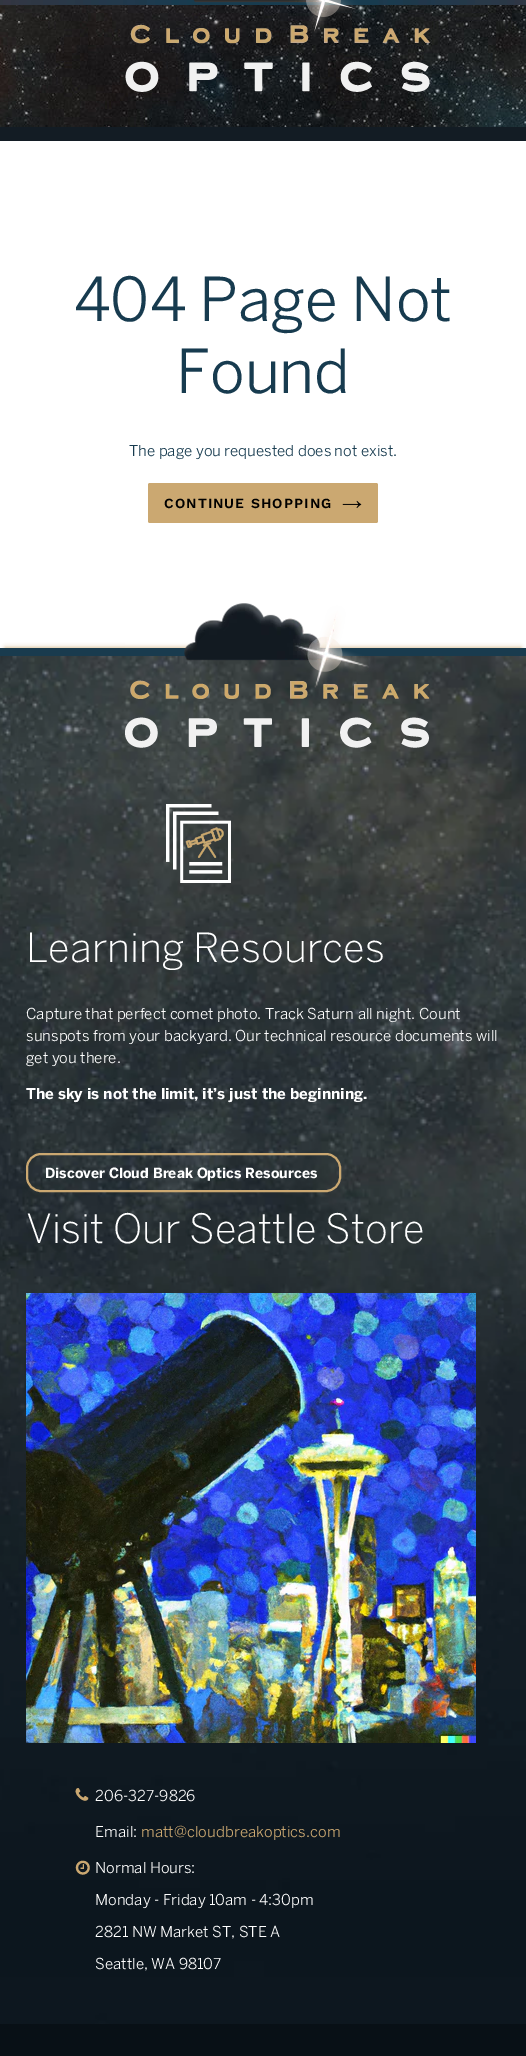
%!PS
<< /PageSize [526 2056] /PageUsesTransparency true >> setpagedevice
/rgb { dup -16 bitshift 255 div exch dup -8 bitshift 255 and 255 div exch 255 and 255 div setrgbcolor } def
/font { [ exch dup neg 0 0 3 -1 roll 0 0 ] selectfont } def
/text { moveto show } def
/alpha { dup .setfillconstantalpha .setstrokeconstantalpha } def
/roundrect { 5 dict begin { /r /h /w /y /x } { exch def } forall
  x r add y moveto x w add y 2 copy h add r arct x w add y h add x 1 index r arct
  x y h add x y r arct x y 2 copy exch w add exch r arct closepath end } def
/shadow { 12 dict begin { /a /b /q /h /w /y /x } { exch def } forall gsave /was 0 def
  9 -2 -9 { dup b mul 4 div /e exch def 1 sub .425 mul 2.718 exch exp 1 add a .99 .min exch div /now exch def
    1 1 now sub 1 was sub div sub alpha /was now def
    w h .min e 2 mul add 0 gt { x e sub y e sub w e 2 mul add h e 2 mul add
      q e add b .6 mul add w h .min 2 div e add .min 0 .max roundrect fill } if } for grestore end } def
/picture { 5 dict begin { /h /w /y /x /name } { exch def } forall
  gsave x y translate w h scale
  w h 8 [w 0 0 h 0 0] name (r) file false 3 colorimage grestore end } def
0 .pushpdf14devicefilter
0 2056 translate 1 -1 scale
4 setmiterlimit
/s1 { /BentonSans-Regular 60 font 16#173B4F rgb } def
/s2 { /BentonSans-Regular 15 font 16#173B4F rgb } def
/s3 { /BentonSans-Light 40 font 16#FFFFFF rgb } def
/s4 { /BentonSans-Regular 15 font 16#FFFFFF rgb } def
/s5 { /BentonSans-Bold 15 font 16#FFFFFF rgb } def
/s6 { /BentonSans-Bold 14 font 16#FFFFFF rgb } def
/s7 { /BentonSans-Regular 15 font 16#CBA871 rgb } def
16#FFFFFF rgb
0 0 526 2056 rectfill
(pic1.raw) 0 0 526 5 picture
(pic3.raw) 0 5 526 122 picture
(pic2.raw) 125 0 305 92 picture
16#131C24 rgb
0 127 526 14 rectfill
s1
(404 Page Not) 74 321 text
(Found) 176 393 text
s2
(The page you requested does not exist.) 129 456 text
16#CBA871 rgb
148 483 230 40 2 roundrect fill
/WorkSans-SemiBold 14 font
16#000000 rgb
164 508 moveto 1.1 0 (CONTINUE SHOPPING) ashow
(pic4.raw) 342 500 20 8 picture
16#CBA871 rgb
5 648 516 1366 0 2.5 1 shadow
(pic5.raw) 0 656 526 1368 picture
16#193B4E rgb
0 648 526 8 rectfill
(pic6.raw) 125 603 305 145 picture
(pic7.raw) 166 804 65 79 picture
s3
(Learning Resources) 26 962 text
s4
(Capture that perfect comet photo. Track Saturn all night. Count) 26 1019 text
(sunspots from your backyard. Our technical resource documents will) 26 1041 text
(get you there.) 26 1063 text
s5
(The sky is not the limit, it’s just the beginning.) 26 1099 text
16#CBA871 rgb
2 setlinewidth
27 1154 313 37 14 roundrect stroke
s6
(Discover Cloud Break Optics Resources) 45 1178 text
s3
(Visit Our Seattle Store) 26 1243 text
(pic8.raw) 26 1293 450 450 picture
(pic9.raw) 75 1788 14 13 picture
s4
(206-327-9826) 95 1801 text
(Email:) 95 1837 text
s7
(matt@cloudbreakoptics.com) 141 1837 text
(pic10.raw) 75 1860 15 15 picture
s4
(Normal Hours:) 95 1873 text
(Monday - Friday 10am - 4:30pm) 95 1905 text
(2821 NW Market ST, STE A) 95 1937 text
(Seattle, WA 98107) 95 1969 text
16#081016 rgb
0 2024 526 32 rectfill
.poppdf14devicefilter showpage
